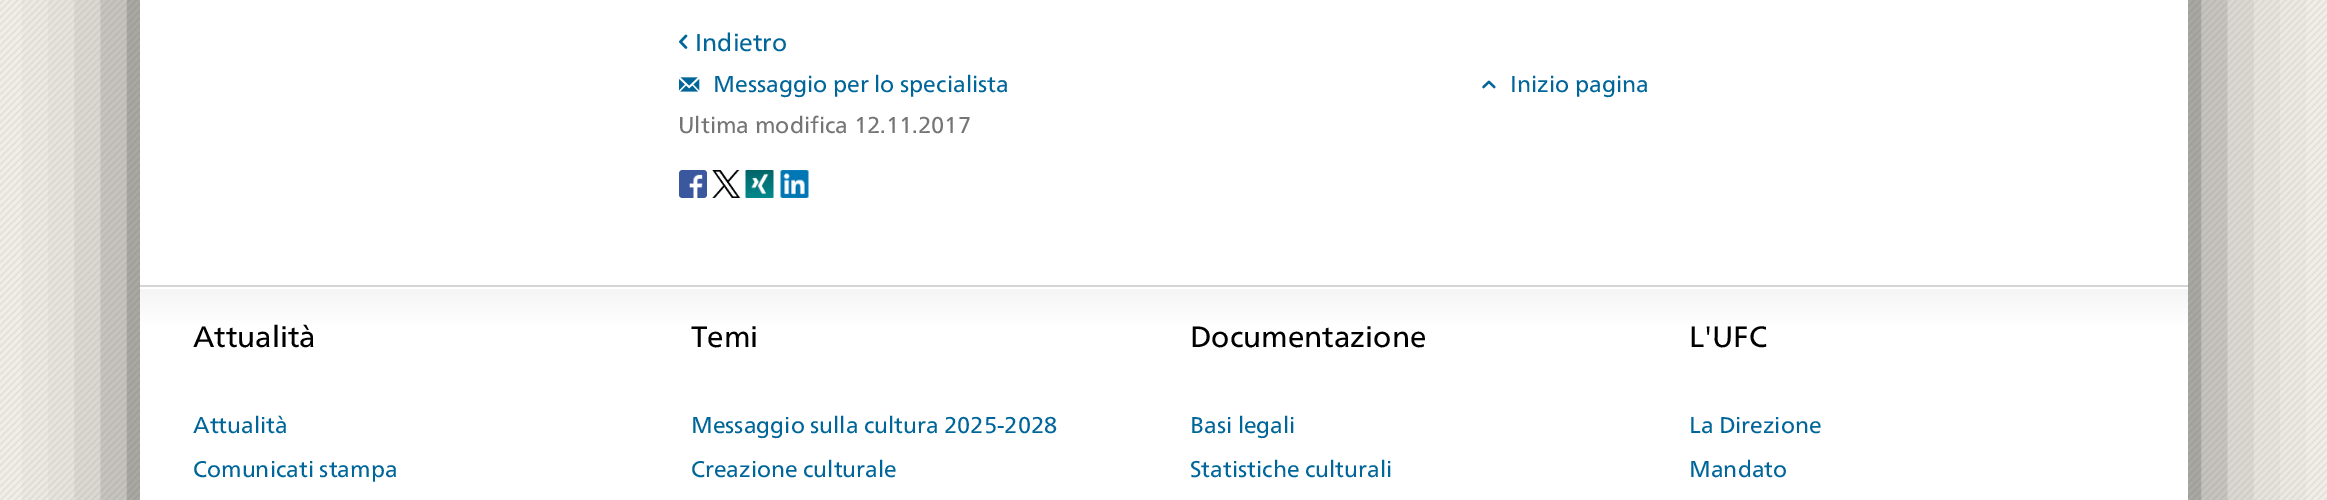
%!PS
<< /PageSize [2327 500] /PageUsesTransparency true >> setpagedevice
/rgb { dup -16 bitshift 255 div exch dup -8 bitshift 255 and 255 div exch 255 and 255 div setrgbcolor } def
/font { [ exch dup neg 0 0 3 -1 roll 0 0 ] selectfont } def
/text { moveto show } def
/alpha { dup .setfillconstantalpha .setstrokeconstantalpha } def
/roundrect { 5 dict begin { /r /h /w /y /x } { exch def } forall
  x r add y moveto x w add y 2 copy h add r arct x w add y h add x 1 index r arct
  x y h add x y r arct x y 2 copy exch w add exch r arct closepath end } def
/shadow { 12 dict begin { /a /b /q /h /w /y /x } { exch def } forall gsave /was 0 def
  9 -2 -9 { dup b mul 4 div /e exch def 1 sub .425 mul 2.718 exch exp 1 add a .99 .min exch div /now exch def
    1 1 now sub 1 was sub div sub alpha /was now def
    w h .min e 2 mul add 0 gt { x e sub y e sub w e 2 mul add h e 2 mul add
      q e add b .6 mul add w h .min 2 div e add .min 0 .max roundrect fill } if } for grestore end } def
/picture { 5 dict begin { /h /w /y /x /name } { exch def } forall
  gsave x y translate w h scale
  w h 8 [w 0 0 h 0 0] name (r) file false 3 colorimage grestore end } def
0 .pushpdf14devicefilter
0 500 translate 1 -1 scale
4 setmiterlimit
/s1 { /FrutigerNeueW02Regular-Regular 24.5 font 16#006699 rgb } def
/s2 { /FrutigerNeueW02Regular-Regular 22.9 font 16#006699 rgb } def
/s3 { /FrutigerNeueW02Regular-Regular 22.9 font 16#757575 rgb } def
/s4 { /FrutigerNeueW02Regular-Regular 29.5 font 16#000000 rgb } def
/s5 { /FrutigerNeueW02Regular-Regular 22.75 font 16#006699 rgb } def
16#FFFFFF rgb
0 0 2327 500 rectfill
(pic1.raw) 0 0 2327 500 picture
16#000000 rgb
140 -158 2048 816 0 52.5 0.6 shadow
16#FFFFFF rgb
140 0 2048 285 rectfill
(pic2.raw) 679 34 9 15 picture
s1
(Indietro) 695 51 text
(pic3.raw) 679 77 21 15 picture
s2
(Messaggio per lo specialista) 713 92 text
s3
(Ultima modifica 12.11.2017) 678 133 text
(pic4.raw) 1482 80 14 9 picture
s2
(Inizio pagina) 1510 92 text
(pic5.raw) 679 170 28 28 picture
(pic6.raw) 712 170 29 28 picture
(pic7.raw) 745 170 29 28 picture
(pic8.raw) 780 170 29 28 picture
16#D5D5D5 rgb
140 285 2048 2 rectfill
gsave 140 287 moveto 2188 287 lineto 2188 289 lineto 140 289 lineto closepath clip newpath
<< /ShadingType 2 /ColorSpace /DeviceRGB /Coords [1164 -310 1164 289] /Extend [true true] /Function << /FunctionType 3 /Domain [0 1] /Functions [<< /FunctionType 2 /Domain [0 1] /C0 [0.961 0.961 0.961] /C1 [1 1 1] /N 1 >> << /FunctionType 2 /Domain [0 1] /C0 [1 1 1] /C1 [1 1 1] /N 1 >>] /Bounds [0.06] /Encode [0 1 0 1] >> >> shfill grestore
gsave 140 289 moveto 2188 289 lineto 2188 500 lineto 140 500 lineto closepath clip newpath
<< /ShadingType 2 /ColorSpace /DeviceRGB /Coords [1164 289 1164 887] /Extend [true true] /Function << /FunctionType 3 /Domain [0 1] /Functions [<< /FunctionType 2 /Domain [0 1] /C0 [0.961 0.961 0.961] /C1 [1 1 1] /N 1 >> << /FunctionType 2 /Domain [0 1] /C0 [1 1 1] /C1 [1 1 1] /N 1 >>] /Bounds [0.06] /Encode [0 1 0 1] >> >> shfill grestore
s4
(Attualità) 193 347 text
s5
(Attualità) 193 433 text
(Comunicati stampa) 193 477 text
s4
(Temi) 691 347 text
s5
(Messaggio sulla cultura 2025-2028) 691 433 text
(Creazione culturale) 691 477 text
s4
(Documentazione) 1190 347 text
s5
(Basi legali) 1190 433 text
(Statistiche culturali) 1190 477 text
s4
(L'UFC) 1689 347 text
s5
(La Direzione) 1689 433 text
(Mandato) 1689 477 text
.poppdf14devicefilter showpage
